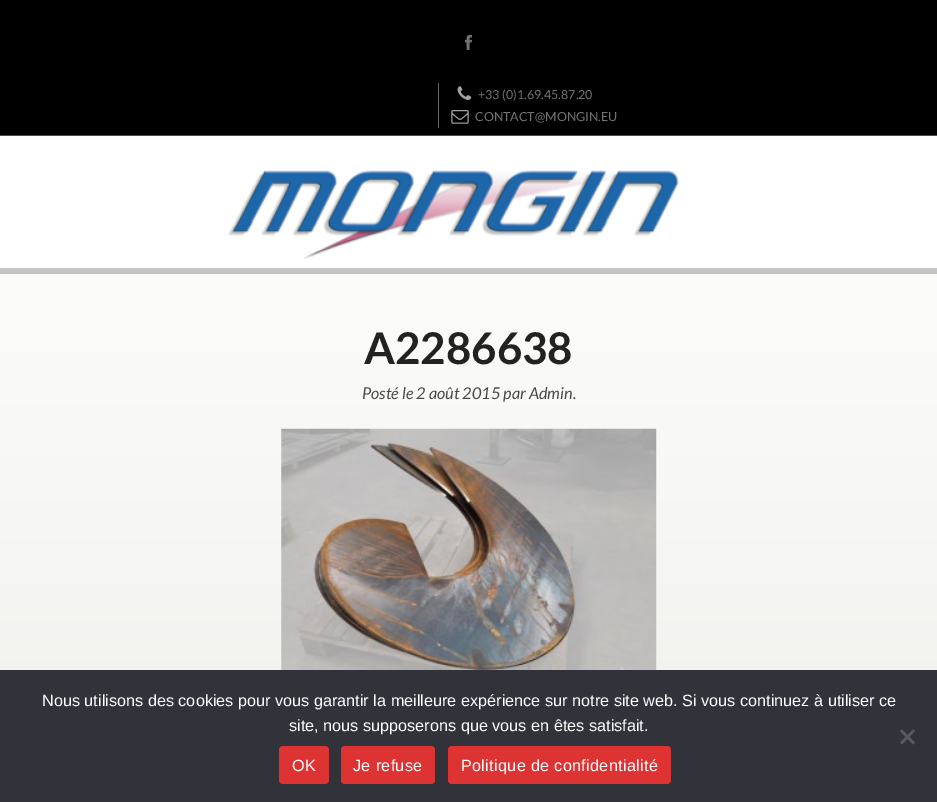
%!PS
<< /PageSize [937 802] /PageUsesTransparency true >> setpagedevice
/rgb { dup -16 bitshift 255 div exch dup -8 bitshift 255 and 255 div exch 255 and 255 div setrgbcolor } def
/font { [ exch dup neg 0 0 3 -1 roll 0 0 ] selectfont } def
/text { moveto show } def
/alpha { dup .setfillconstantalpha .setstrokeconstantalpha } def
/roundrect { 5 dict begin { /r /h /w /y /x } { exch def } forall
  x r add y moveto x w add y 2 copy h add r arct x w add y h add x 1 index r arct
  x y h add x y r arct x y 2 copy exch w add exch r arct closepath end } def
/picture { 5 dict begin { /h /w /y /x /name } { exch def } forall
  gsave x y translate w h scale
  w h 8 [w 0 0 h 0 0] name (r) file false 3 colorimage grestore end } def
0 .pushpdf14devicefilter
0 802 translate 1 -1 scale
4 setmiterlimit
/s1 { /Lato-Regular 12.5 font 16#727272 rgb } def
/s2 { /Lato-Bold 43.75 font 16#222220 rgb } def
/s3 { /Lato-Italic 16.25 font 16#494944 rgb } def
/s4 { /LiberationSans-Regular 16.25 font 16#FFFFFF rgb } def
16#000000 rgb
0 0 937 802 rectfill
16#4C4C4A rgb
0 135 937 1 rectfill
(pic1.raw) 465 34 7 16 picture
16#656666 rgb
438 83 1 45 rectfill
(pic2.raw) 457 86 15 14 picture
s1
(+33 \(0\)1.69.45.87.20) 478 99 text
(pic3.raw) 451 110 18 14 picture
(CONTACT@MONGIN.EU) 475 121 text
16#FFFFFF rgb
0 136 937 133 rectfill
(pic4.raw) 228 170 451 89 picture
16#DFDFD8 rgb
0 269 937 401 rectfill
(pic5.raw) 0 269 937 401 picture
0.22 alpha
16#000000 rgb
0 268 937 6 rectfill
1 alpha
s2
(A2286638) 364 364 text
s3
(Posté le 2 août 2015 par Admin.) 362 399 text
(pic6.raw) 281 428 376 242 picture
16#32323A rgb
0 670 937 132 rectfill
s4
(Nous utilisons des cookies pour vous garantir la meilleure expérience sur notre site web. Si vous continuez à utiliser ce) 42 706 text
(site, nous supposerons que vous en êtes satisfait.) 289 731 text
16#59595D rgb
913 729.5 moveto 915 731 lineto 902 744.5 lineto 900 742.5 lineto closepath fill
900 731 moveto 902 729.5 lineto 915 742.5 lineto 913 744.5 lineto closepath fill
16#DD3333 rgb
279 746 50 38 4 roundrect fill
16#FFFFFF rgb
292 771 moveto 0.3 0 (OK) ashow
16#DD3333 rgb
341 746 94 38 4 roundrect fill
16#FFFFFF rgb
353 771 moveto 0.3 0 (Je refuse) ashow
16#DD3333 rgb
448 746 223 38 4 roundrect fill
16#FFFFFF rgb
461 771 moveto 0.3 0 (Politique de confidentialité) ashow
.poppdf14devicefilter showpage
